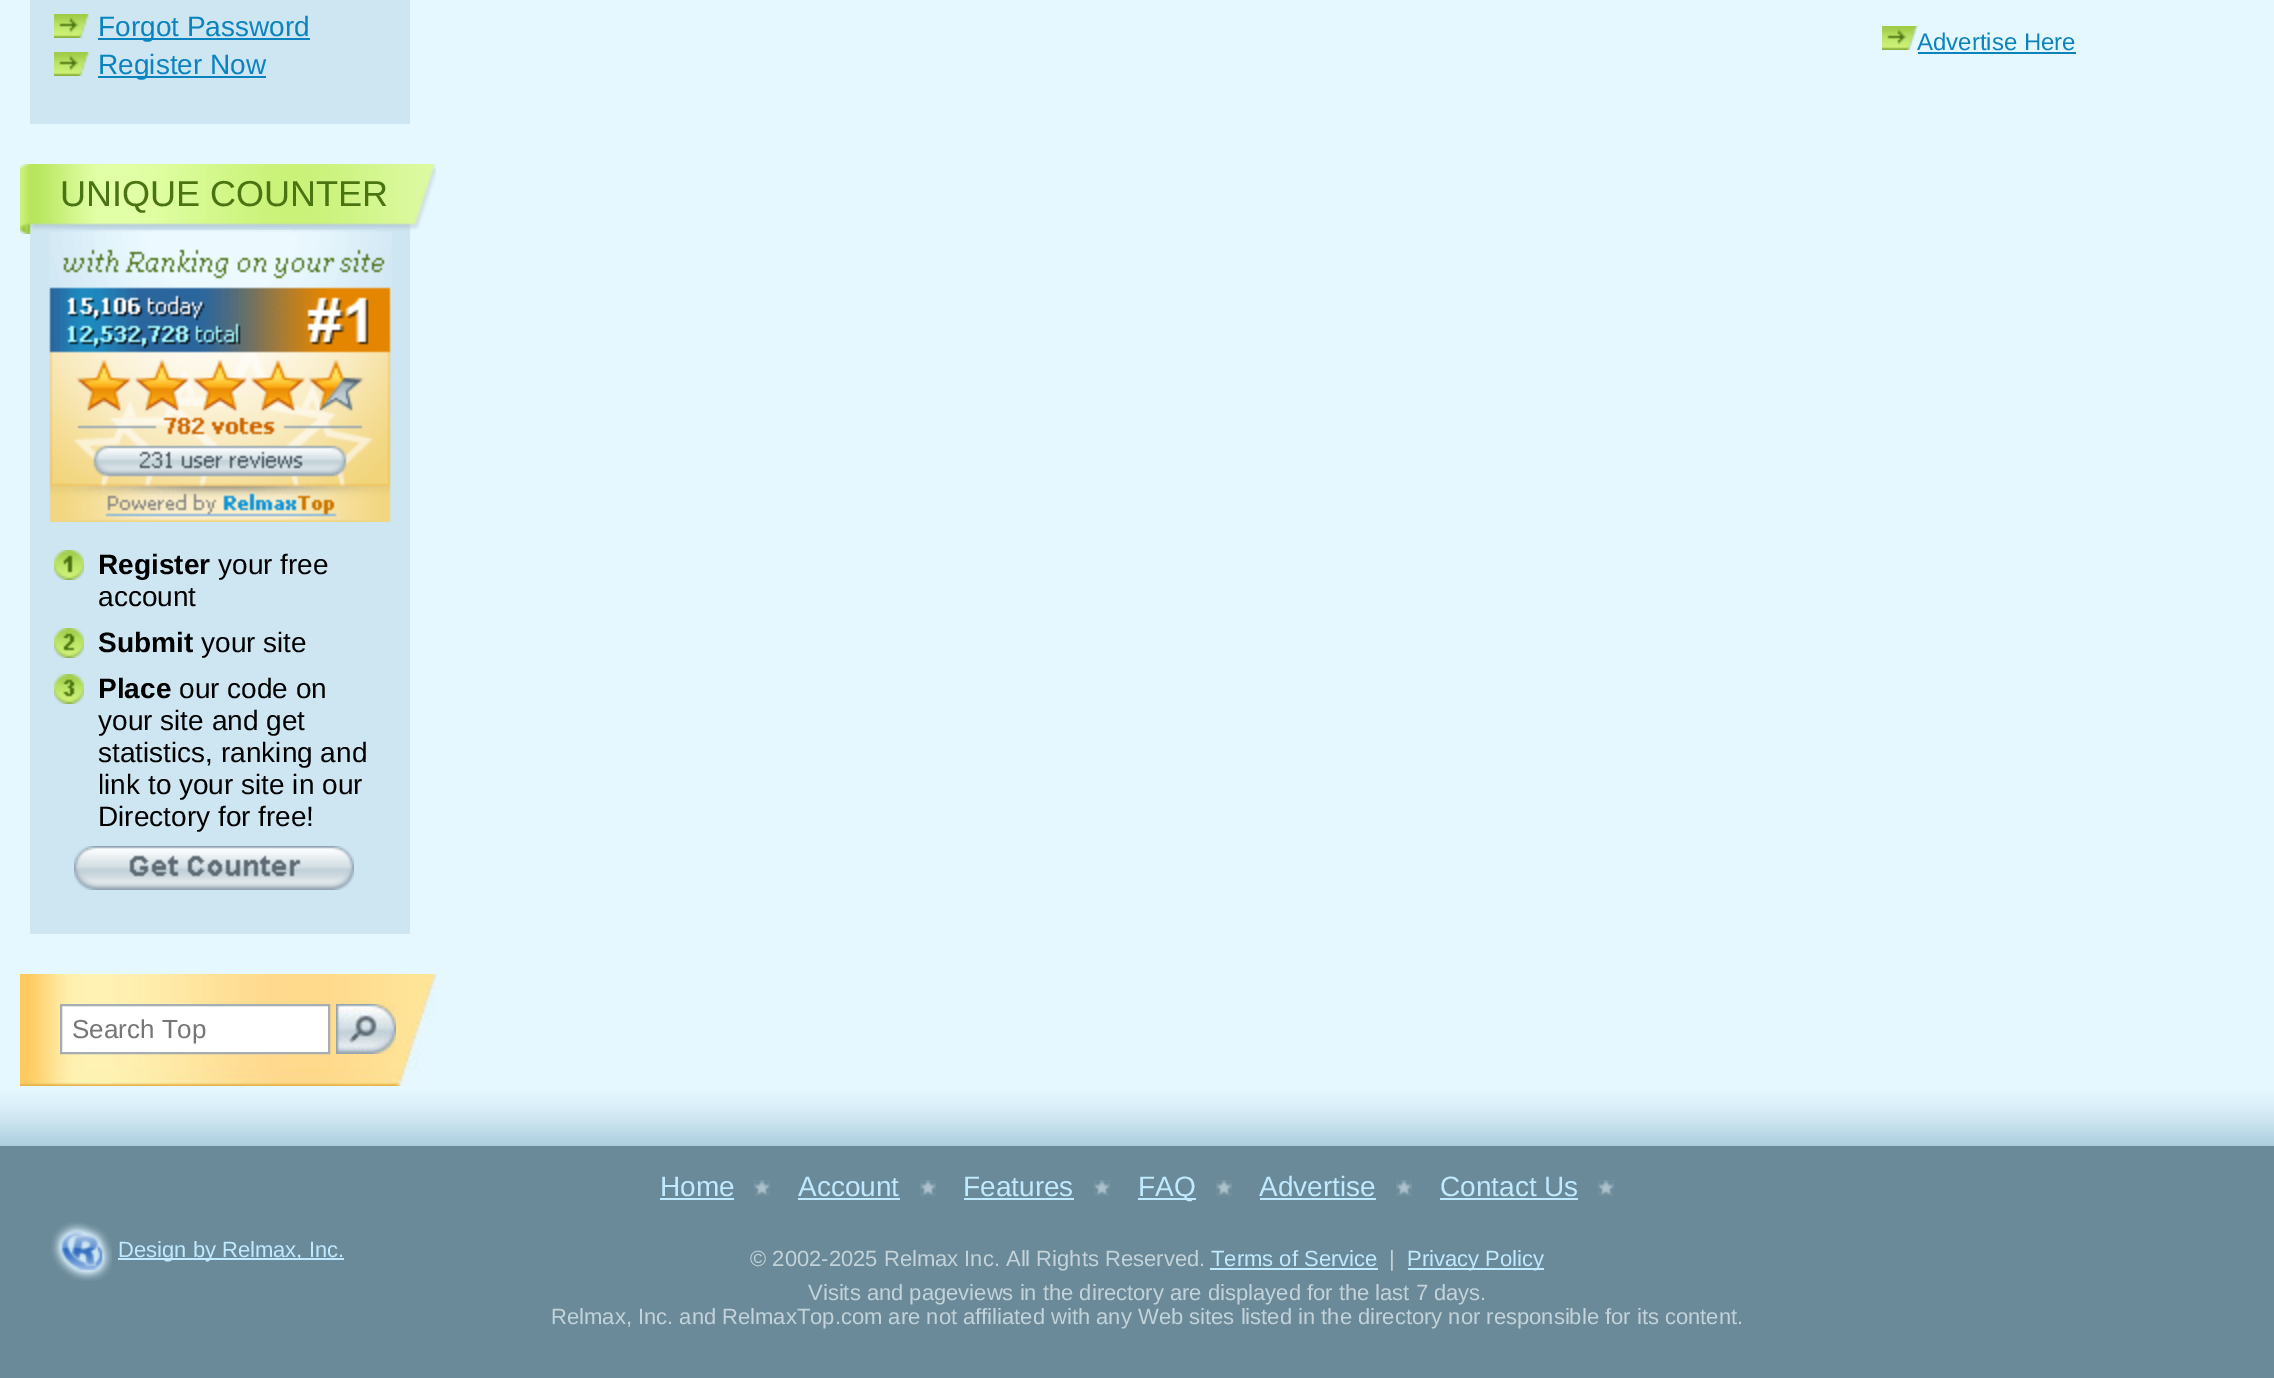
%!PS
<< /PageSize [2274 1378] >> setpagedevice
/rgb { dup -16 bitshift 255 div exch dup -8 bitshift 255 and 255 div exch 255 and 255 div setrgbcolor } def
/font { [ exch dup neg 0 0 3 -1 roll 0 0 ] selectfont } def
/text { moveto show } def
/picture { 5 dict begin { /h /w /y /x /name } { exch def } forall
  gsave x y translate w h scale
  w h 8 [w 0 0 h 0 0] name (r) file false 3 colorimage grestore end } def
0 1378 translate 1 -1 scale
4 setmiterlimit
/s1 { /LiberationSans-Regular 28 font 16#0B83BF rgb } def
/s2 { /LiberationSans-Regular 36 font 16#4A7311 rgb } def
/s3 { /LiberationSans-Bold 28 font 16#000000 rgb } def
/s4 { /LiberationSans-Regular 28 font 16#000000 rgb } def
/s5 { /LiberationSans-Regular 26 font 16#757575 rgb } def
/s6 { /LiberationSans-Regular 24 font 16#0B83BF rgb } def
/s7 { /LiberationSans-Regular 22 font 16#BFEAFF rgb } def
/s8 { /LiberationSans-Regular 28 font 16#BFEAFF rgb } def
/s9 { /LiberationSans-Regular 22 font 16#C3D3D9 rgb } def
16#E5F7FF rgb
0 0 2274 1378 rectfill
16#CEE6F2 rgb
30 0 380 124 rectfill
(pic1.raw) 54 14 35 24 picture
16#0B83BF rgb
98 38 212 2 rectfill
s1
(Forgot Password) 98 36 text
(pic1.raw) 54 52 35 24 picture
98 76 168 2 rectfill
(Register Now) 98 74 text
(pic2.raw) 20 164 416 70 picture
s2
(UNIQUE COUNTER) 60 206 text
16#CEE6F2 rgb
30 234 380 700 rectfill
(pic3.raw) 49 230 343 292 picture
(pic4.raw) 54 550 30 30 picture
s3
(Register) 98 574 text
s4
(your free) 218 574 text
(account) 98 606 text
(pic5.raw) 54 628 30 30 picture
s3
(Submit) 98 652 text
s4
(your site) 201 652 text
(pic6.raw) 54 674 30 30 picture
s3
(Place) 98 698 text
s4
(our code on) 179 698 text
(your site and get) 98 730 text
(statistics, ranking and) 98 762 text
(link to your site in our) 98 794 text
(Directory for free!) 98 826 text
(pic7.raw) 74 846 280 44 picture
(pic8.raw) 20 974 416 112 picture
16#FFFFFF rgb
61 1005 moveto 329 1005 lineto 329 1053 lineto 61 1053 lineto closepath gsave fill grestore
16#A5ACB2 rgb
2 setlinewidth
stroke
s5
(Search Top) 72 1038 text
(pic9.raw) 336 1004 60 50 picture
(pic10.raw) 1882 26 36 24 picture
s6
(Advertise Here) 1917 50 text
1918 52 158 2 rectfill
16#6B8A99 rgb
0 1146 2274 232 rectfill
(pic11.raw) 0 1090 2274 56 picture
(pic12.raw) 51 1222 61 59 picture
16#BFEAFF rgb
118 1258 226 2 rectfill
s7
(Design by Relmax, Inc.) 118 1257 text
s8
(Home) 660 1196 text
660 1198 74 2 rectfill
(pic13.raw) 754 1180 16 16 picture
(Account) 798 1196 text
798 1198 102 2 rectfill
(pic13.raw) 920 1180 16 16 picture
(Features) 963 1196 text
964 1198 110 2 rectfill
(pic13.raw) 1094 1180 16 16 picture
1138 1198 58 2 rectfill
(FAQ) 1138 1196 text
(pic13.raw) 1216 1180 16 16 picture
(Advertise) 1259 1196 text
1260 1198 116 2 rectfill
(pic13.raw) 1396 1180 16 16 picture
(Contact Us) 1440 1196 text
1440 1198 138 2 rectfill
(pic13.raw) 1598 1180 16 16 picture
s9
(© 2002-2025 Relmax Inc. All Rights Reserved.) 750 1266 text
s7
(Terms of Service) 1211 1266 text
1210 1268 168 2 rectfill
s9
(|) 1389 1266 text
16#BFEAFF rgb
1408 1268 136 2 rectfill
(Privacу Policy) 1407 1266 text
s9
(Visits and pageviews in the directory are displayed for the last 7 days.) 808 1300 text
(Relmax, Inc. and RelmaxTop.com are not affiliated with any Web sites listed in the directory nor responsible for its content.) 551 1324 text
showpage
